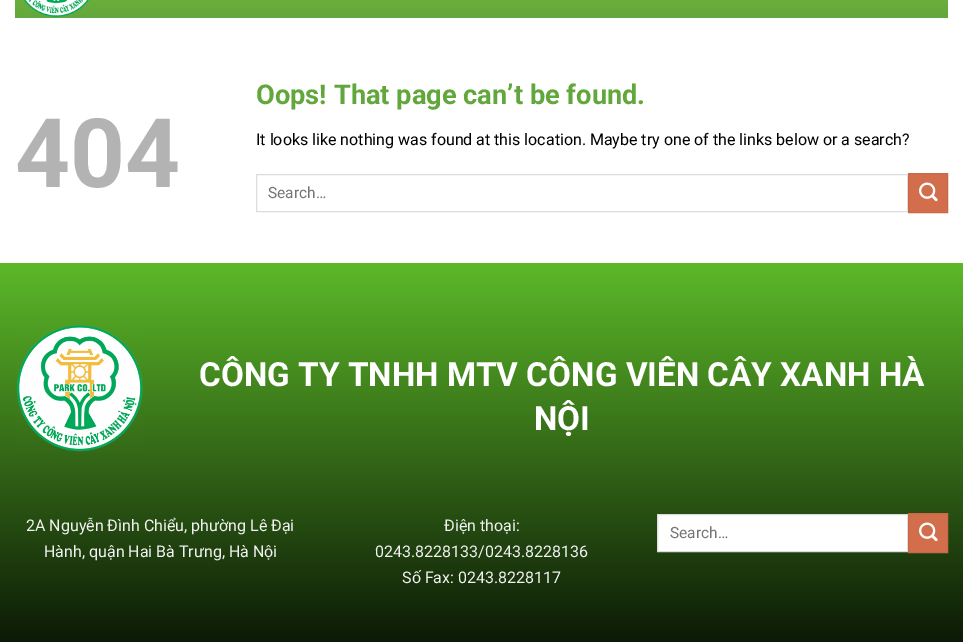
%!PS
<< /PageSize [963 642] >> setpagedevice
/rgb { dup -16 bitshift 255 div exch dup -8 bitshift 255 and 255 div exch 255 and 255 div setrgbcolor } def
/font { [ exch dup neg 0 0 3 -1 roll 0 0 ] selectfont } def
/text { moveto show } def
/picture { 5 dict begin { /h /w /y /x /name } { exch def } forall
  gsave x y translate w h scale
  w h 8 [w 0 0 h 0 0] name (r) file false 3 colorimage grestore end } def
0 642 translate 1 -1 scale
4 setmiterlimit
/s1 { /Roboto-Bold 96 font 16#B3B3B3 rgb } def
/s2 { /Roboto-Bold 27.25 font 16#62A73C rgb } def
/s3 { /Roboto-Regular 16 font 16#000000 rgb } def
/s4 { /Roboto-Regular 15.5 font 16#757575 rgb } def
/s5 { /Roboto-Bold 33.25 font 16#FFFFFF rgb } def
/s6 { /Roboto-Regular 16 font 16#F1F1F1 rgb } def
16#FFFFFF rgb
0 0 963 642 rectfill
gsave 15 0 moveto 948 0 lineto 948 18 lineto 15 18 lineto closepath clip newpath
<< /ShadingType 2 /ColorSpace /DeviceRGB /Coords [482 -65 482 18] /Extend [true true] /Function << /FunctionType 2 /Domain [0 1] /C0 [0.541 0.784 0.196] /C1 [0.384 0.655 0.235] /N 1 >> >> shfill grestore
(pic1.raw) 23 0 66 17 picture
s1
(404) 15 187 text
s2
(Oops! That page can’t be found.) 256 104 text
s3
(It looks like nothing was found at this location. Maybe try one of the links below or a search?) 256 145 text
16#DDDDDD rgb
256.5 174.5 651 37 rectstroke
s4
(Search…) 268 198 text
16#D26E4B rgb
908.5 173.5 moveto 947.5 173.5 lineto 947.5 212.5 lineto 908.5 212.5 lineto closepath gsave fill grestore
16#C86947 rgb
stroke
(pic2.raw) 919 182 19 20 picture
gsave 0 263 moveto 963 263 lineto 963 642 lineto 0 642 lineto closepath clip newpath
<< /ShadingType 2 /ColorSpace /DeviceRGB /Coords [482 263 482 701] /Extend [true true] /Function << /FunctionType 2 /Domain [0 1] /C0 [0.361 0.725 0.161] /C1 [0 0 0] /N 1 >> >> shfill grestore
(pic3.raw) 16 325 127 127 picture
s5
(CÔNG TY TNHH MTV CÔNG VIÊN CÂY XANH HÀ) 199 386 text
(NỘI) 534 430 text
s6
(2A Nguyễn Đình Chiểu, phường Lê Đại) 26 531 text
(Hành, quận Hai Bà Trưng, Hà Nội) 44 557 text
(Điện thoại:) 444 531 text
(0243.8228133/0243.8228136) 375 557 text
(Số Fax: 0243.8228117) 402 583 text
16#FFFFFF rgb
657.5 514.5 moveto 907.5 514.5 lineto 907.5 551.5 lineto 657.5 551.5 lineto closepath gsave fill grestore
16#DDDDDD rgb
stroke
s4
(Search…) 670 538 text
16#D26E4B rgb
908.5 513.5 moveto 947.5 513.5 lineto 947.5 552.5 lineto 908.5 552.5 lineto closepath gsave fill grestore
16#C86947 rgb
stroke
(pic2.raw) 919 522 19 20 picture
showpage
